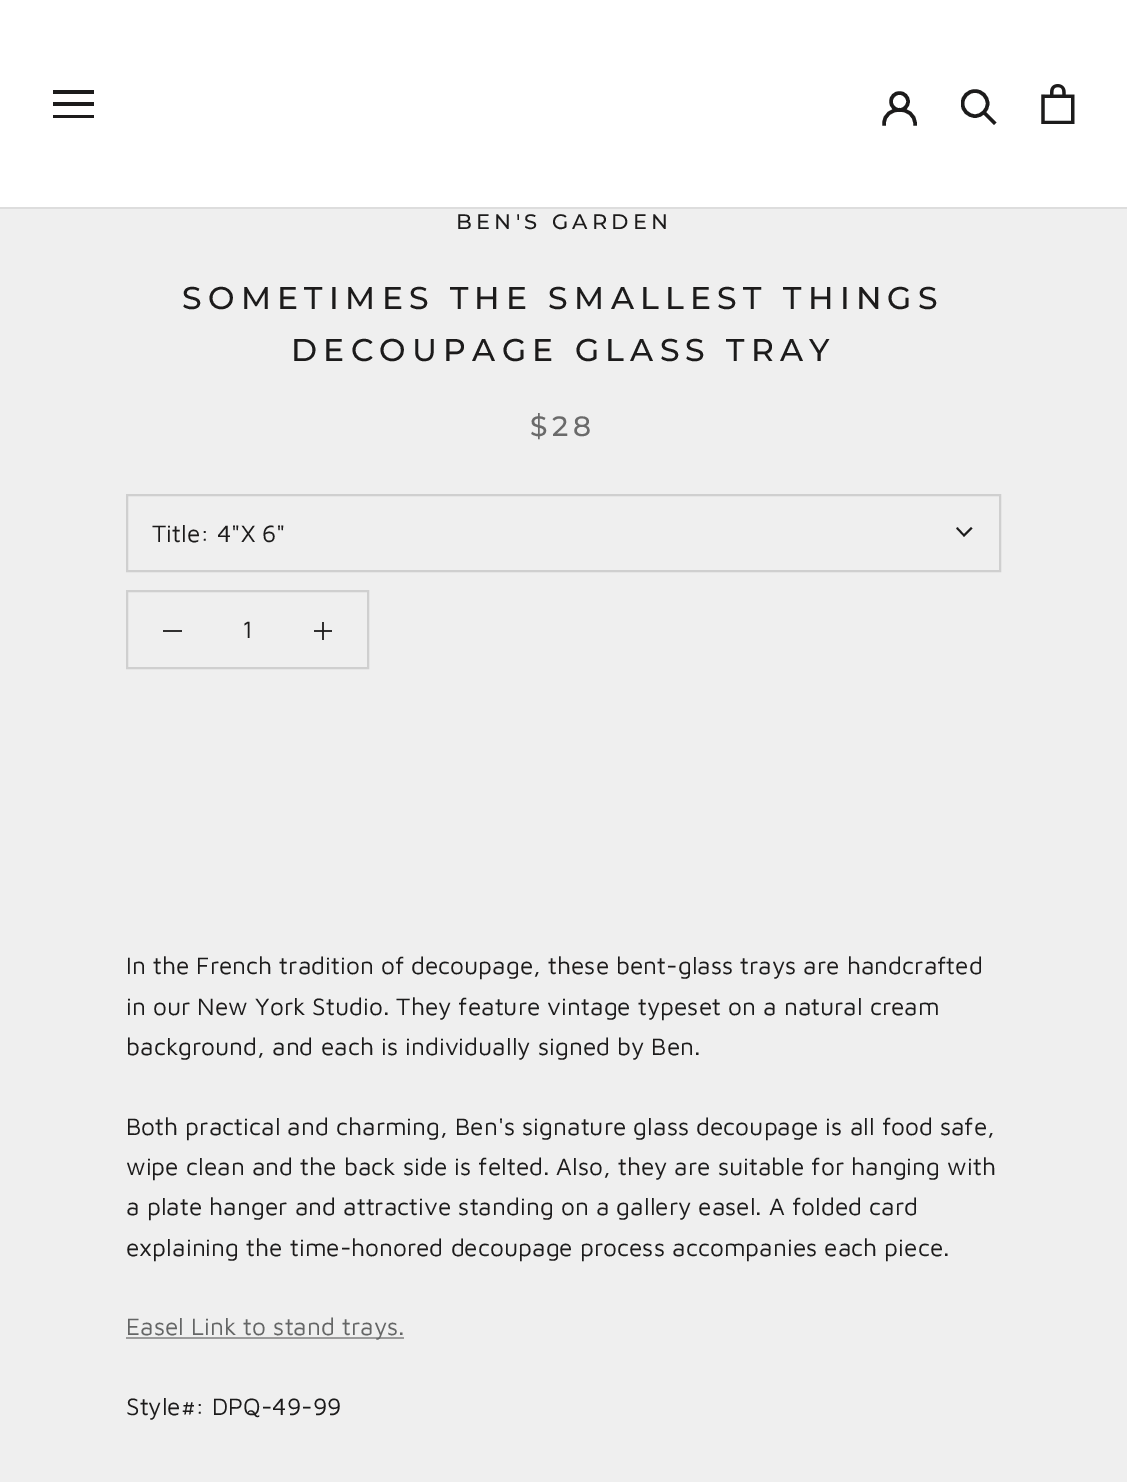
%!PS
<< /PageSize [1127 1482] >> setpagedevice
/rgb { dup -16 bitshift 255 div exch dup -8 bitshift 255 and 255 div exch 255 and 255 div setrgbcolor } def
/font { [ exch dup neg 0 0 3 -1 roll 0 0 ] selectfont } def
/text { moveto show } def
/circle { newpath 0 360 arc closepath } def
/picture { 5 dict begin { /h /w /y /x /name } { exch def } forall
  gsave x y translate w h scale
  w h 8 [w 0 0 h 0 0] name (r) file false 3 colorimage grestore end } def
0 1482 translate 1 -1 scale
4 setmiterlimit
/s1 { /MavenPro-Regular 24.5 font 16#1C1B1B rgb } def
/s2 { /MavenPro-Regular 24.5 font 16#646565 rgb } def
16#EFEFEF rgb
0 0 1127 1482 rectfill
16#313030 rgb
314 630 18 2 rectfill
16#FFFFFF rgb
0 0 1127 207 rectfill
16#DDDDDD rgb
0 207 1127 2 rectfill
gsave
53 89 42 30 rectclip
16#1C1B1B rgb
52 118 moveto 52 115 lineto 94 115 lineto 94 118 lineto closepath 52 102 moveto 94 102 lineto 94 106 lineto 52 106 lineto closepath 52 90 moveto 94 90 lineto 94 94 lineto 52 94 lineto closepath fill
grestore
16#1C1B1B rgb
3.5 setlinewidth
2 setlinecap
884 124 moveto 884 105 915 105 915 124 curveto stroke
0 setlinecap
899.5 101.5 8.5 circle stroke
2 setlinecap
994 122.5 moveto 984 112.5 lineto stroke
gsave
961 89 37 37 rectclip
0 setlinecap
975 103.5 12.5 circle stroke
grestore
(pic1.raw) 1041 84 34 40 picture
/Montserrat-Medium 21 font
456 229 moveto 4.25 0 (BEN'S GARDEN) ashow
/Montserrat-Medium 31.5 font
182 309 moveto 6.3 0 (SOMETIMES THE SMALLEST THINGS) ashow
291 361 moveto 6.3 0 (DECOUPAGE GLASS TRAY) ashow
/Montserrat-Medium 28 font
16#6A6A6A rgb
530 436 moveto 5 0 ($28) ashow
16#CFCFCF rgb
2 setlinewidth
0 setlinecap
127 495 873 76 rectstroke
s1
(Title: 4"X 6") 152 542 text
1.8 setlinewidth
2 setlinecap
971 528.5 moveto 964 535.5 lineto 957.5 528.5 lineto stroke
16#CFCFCF rgb
2 setlinewidth
0 setlinecap
127 591 241 77 rectstroke
16#313030 rgb
163 630 19 2 rectfill
s1
(1) 242 638 text
16#313030 rgb
322 622 2 18 rectfill
16#1E1D1D rgb
322 630 2 2 rectfill
s1
(In the French tradition of decoupage, these bent-glass trays are handcrafted) 126 974 text
(in our New York Studio. They feature vintage typeset on a natural cream) 126 1015 text
(background, and each is individually signed by Ben.) 126 1055 text
(Both practical and charming, Ben's signature glass decoupage is all food safe,) 126 1135 text
(wipe clean and the back side is felted. Also, they are suitable for hanging with) 126 1175 text
(a plate hanger and attractive standing on a gallery easel. A folded card) 126 1215 text
(explaining the time-honored decoupage process accompanies each piece.) 126 1256 text
16#9C9C9C rgb
126 1337 278 2 rectfill
s2
(Easel Link to stand trays.) 126 1335 text
s1
(Style#: DPQ-49-99) 126 1415 text
showpage
